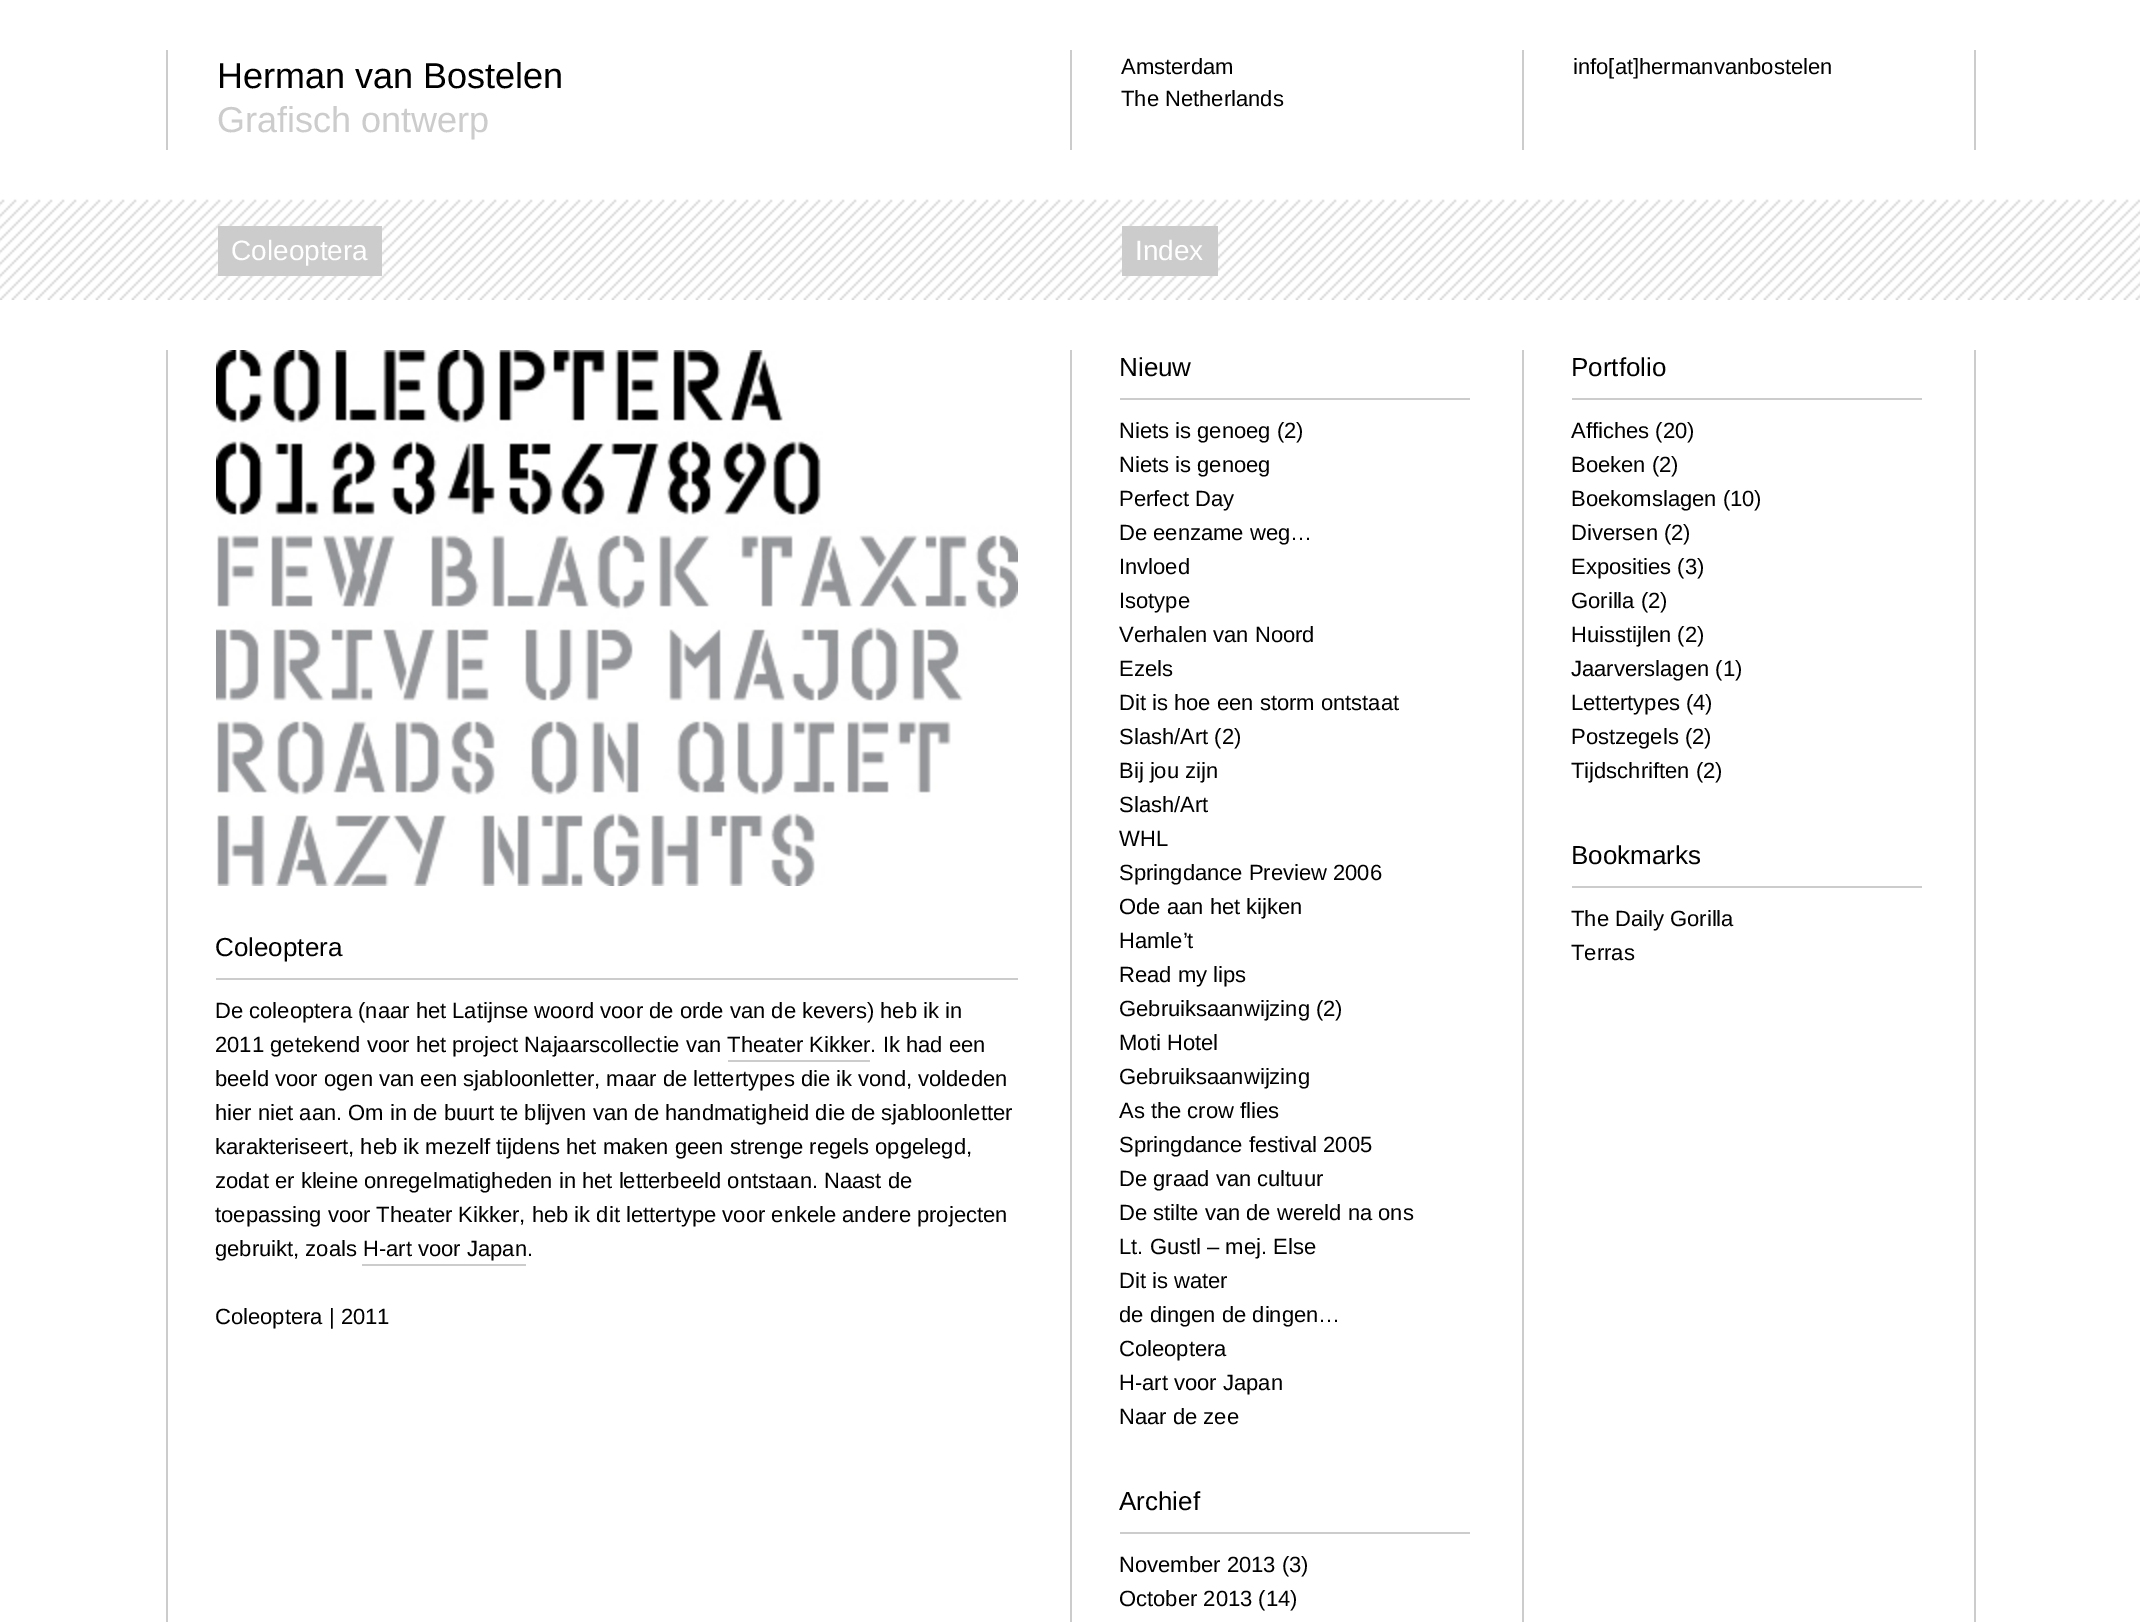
%!PS
<< /PageSize [2140 1622] >> setpagedevice
/rgb { dup -16 bitshift 255 div exch dup -8 bitshift 255 and 255 div exch 255 and 255 div setrgbcolor } def
/font { [ exch dup neg 0 0 3 -1 roll 0 0 ] selectfont } def
/text { moveto show } def
/picture { 5 dict begin { /h /w /y /x /name } { exch def } forall
  gsave x y translate w h scale
  w h 8 [w 0 0 h 0 0] name (r) file false 3 colorimage grestore end } def
0 1622 translate 1 -1 scale
4 setmiterlimit
/s1 { /LiberationSans-Regular 36 font 16#000000 rgb } def
/s2 { /LiberationSans-Regular 36 font 16#CCCCCC rgb } def
/s3 { /LiberationSans-Regular 22 font 16#000000 rgb } def
/s4 { /LiberationSans-Regular 28 font 16#FFFFFF rgb } def
/s5 { /LiberationSans-Regular 26 font 16#000000 rgb } def
16#FFFFFF rgb
0 0 2140 1622 rectfill
(pic1.raw) 0 199 2140 101 picture
16#CCCCCC rgb
1070 50 2 100 rectfill
166 50 2 100 rectfill
s1
(Herman van Bostelen) 217 88 text
s2
(Grafisch ontwerp) 217 132 text
1974 50 2 100 rectfill
1522 50 2 100 rectfill
s3
(Amsterdam) 1121 74 text
(The Netherlands) 1121 106 text
(info[at]hermanvanbostelen) 1573 74 text
16#CCCCCC rgb
218 226 164 50 rectfill
s4
(Coleoptera) 231 260 text
16#CCCCCC rgb
1122 226 96 50 rectfill
s4
(Index) 1135 260 text
16#CCCCCC rgb
1974 350 2 1272 rectfill
166 350 2 1272 rectfill
1522 350 2 1272 rectfill
1070 350 2 1272 rectfill
1120 398 350 2 rectfill
s5
(Nieuw) 1119 376 text
s3
(Niets is genoeg \(2\)) 1119 438 text
(Niets is genoeg) 1119 472 text
(Perfect Day) 1119 506 text
(De eenzame weg…) 1119 540 text
(Invloed) 1119 574 text
(Isotype) 1119 608 text
(Verhalen van Noord) 1119 642 text
(Ezels) 1119 676 text
(Dit is hoe een storm ontstaat) 1119 710 text
(Slash/Art \(2\)) 1119 744 text
(Bij jou zijn) 1119 778 text
(Slash/Art) 1119 812 text
(WHL) 1119 846 text
(Springdance Preview 2006) 1119 880 text
(Ode aan het kijken) 1119 914 text
(Hamle’t) 1119 948 text
(Read my lips) 1119 982 text
(Gebruiksaanwijzing \(2\)) 1119 1016 text
(Moti Hotel) 1119 1050 text
(Gebruiksaanwijzing) 1119 1084 text
(As the crow flies) 1119 1118 text
(Springdance festival 2005) 1119 1152 text
(De graad van cultuur) 1119 1186 text
(De stilte van de wereld na ons) 1119 1220 text
(Lt. Gustl – mej. Else) 1119 1254 text
(Dit is water) 1119 1288 text
(de dingen de dingen…) 1119 1322 text
(Coleoptera) 1119 1356 text
(H-art voor Japan) 1119 1390 text
(Naar de zee) 1119 1424 text
16#CCCCCC rgb
1120 1532 350 2 rectfill
s5
(Archief) 1119 1510 text
s3
(November 2013 \(3\)) 1119 1572 text
(October 2013 \(14\)) 1119 1606 text
16#CCCCCC rgb
1572 398 350 2 rectfill
s5
(Portfolio) 1571 376 text
s3
(Affiches \(20\)) 1571 438 text
(Boeken \(2\)) 1571 472 text
(Boekomslagen \(10\)) 1571 506 text
(Diversen \(2\)) 1571 540 text
(Exposities \(3\)) 1571 574 text
(Gorilla \(2\)) 1571 608 text
(Huisstijlen \(2\)) 1571 642 text
(Jaarverslagen \(1\)) 1571 676 text
(Lettertypes \(4\)) 1571 710 text
(Postzegels \(2\)) 1571 744 text
(Tijdschriften \(2\)) 1571 778 text
16#CCCCCC rgb
1572 886 350 2 rectfill
s5
(Bookmarks) 1571 864 text
s3
(The Daily Gorilla) 1571 926 text
(Terras) 1571 960 text
(pic2.raw) 216 350 802 536 picture
16#CCCCCC rgb
216 978 802 2 rectfill
s5
(Coleoptera) 215 956 text
s3
(De coleoptera \(naar het Latijnse woord voor de orde van de kevers\) heb ik in) 215 1018 text
(2011 getekend voor het project Najaarscollectie van Theater Kikker. Ik had een) 215 1052 text
16#CCCCCC rgb
728 1060 142 2 rectfill
s3
(beeld voor ogen van een sjabloonletter, maar de lettertypes die ik vond, voldeden) 215 1086 text
(hier niet aan. Om in de buurt te blijven van de handmatigheid die de sjabloonletter) 215 1120 text
(karakteriseert, heb ik mezelf tijdens het maken geen strenge regels opgelegd,) 215 1154 text
(zodat er kleine onregelmatigheden in het letterbeeld ontstaan. Naast de) 215 1188 text
(toepassing voor Theater Kikker, heb ik dit lettertype voor enkele andere projecten) 215 1222 text
(gebruikt, zoals H-art voor Japan.) 215 1256 text
16#CCCCCC rgb
362 1264 164 2 rectfill
s3
(Coleoptera | 2011) 215 1324 text
showpage
